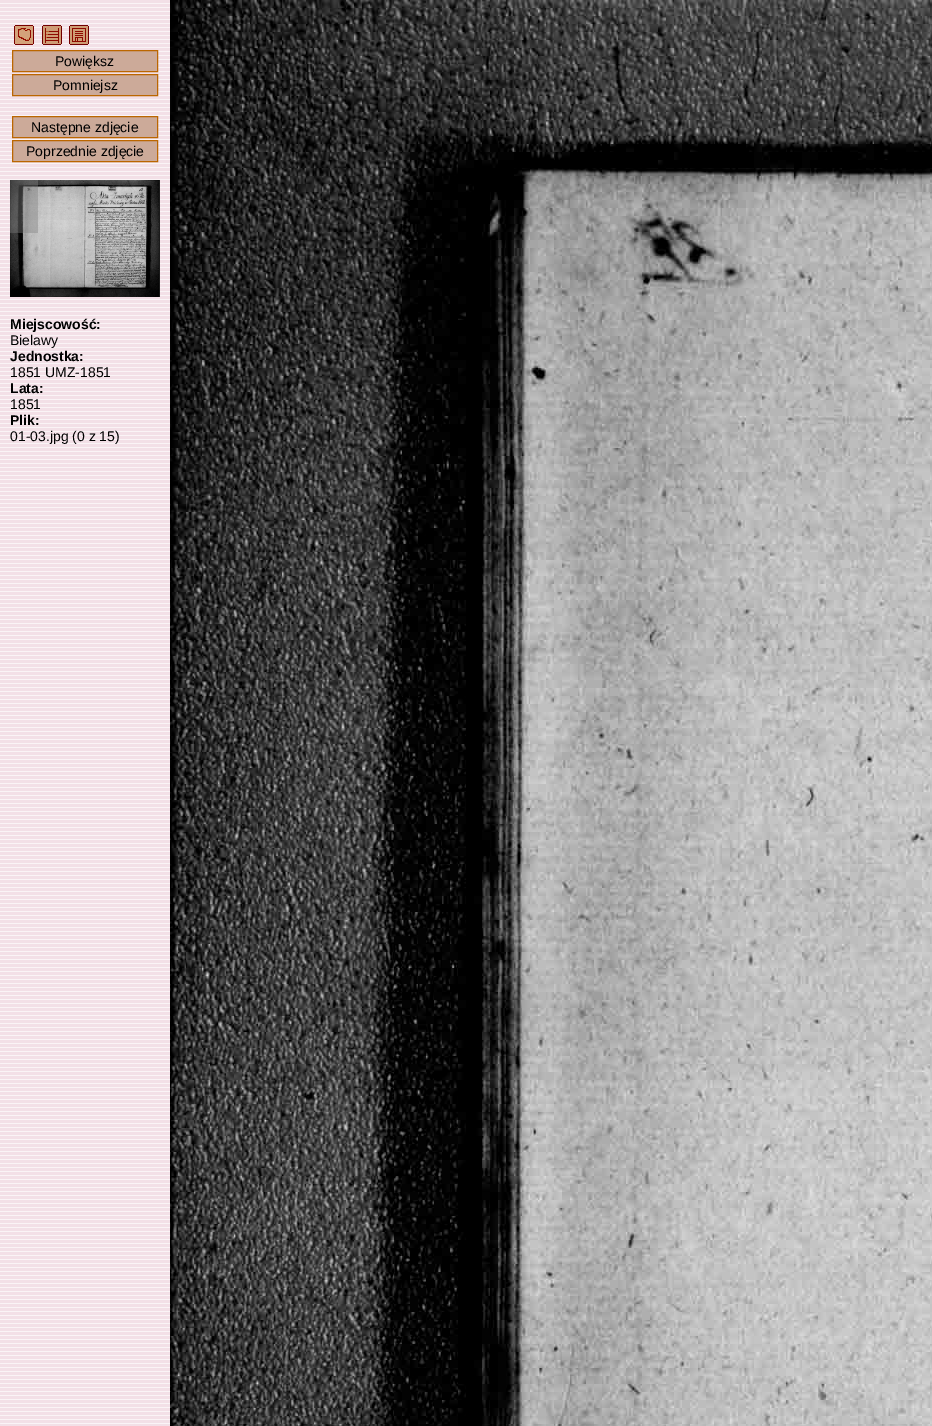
%!PS
<< /PageSize [932 1426] >> setpagedevice
/rgb { dup -16 bitshift 255 div exch dup -8 bitshift 255 and 255 div exch 255 and 255 div setrgbcolor } def
/font { [ exch dup neg 0 0 3 -1 roll 0 0 ] selectfont } def
/text { moveto show } def
/picture { 5 dict begin { /h /w /y /x /name } { exch def } forall
  gsave x y translate w h scale
  w h 8 [w 0 0 h 0 0] name (r) file false 3 colorimage grestore end } def
0 1426 translate 1 -1 scale
4 setmiterlimit
/s1 { /LiberationSans-Regular 14 font 16#000000 rgb } def
/s2 { /LiberationSans-Bold 14 font 16#000000 rgb } def
16#FFFFFF rgb
0 0 932 1426 rectfill
(pic1.raw) 0 0 170 1426 picture
(pic2.raw) 14 25 20 20 picture
(pic3.raw) 42 25 20 20 picture
(pic4.raw) 69 25 20 20 picture
16#CCAA99 rgb
12.5 50.5 moveto 157.5 50.5 lineto 157.5 71.5 lineto 12.5 71.5 lineto closepath gsave fill grestore
16#BB6600 rgb
stroke
s1
(Powiększ) 55 66 text
16#CCAA99 rgb
12.5 74.5 moveto 157.5 74.5 lineto 157.5 95.5 lineto 12.5 95.5 lineto closepath gsave fill grestore
16#BB6600 rgb
stroke
s1
(Pomniejsz) 53 90 text
16#CCAA99 rgb
12.5 116.5 moveto 157.5 116.5 lineto 157.5 137.5 lineto 12.5 137.5 lineto closepath gsave fill grestore
16#BB6600 rgb
stroke
s1
(Następne zdjęcie) 31 132 text
16#CCAA99 rgb
12.5 140.5 moveto 157.5 140.5 lineto 157.5 161.5 lineto 12.5 161.5 lineto closepath gsave fill grestore
16#BB6600 rgb
stroke
s1
(Poprzednie zdjęcie) 26 156 text
(pic5.raw) 10 180 150 117 picture
s2
(Miejscowość:) 10 329 text
s1
(Bielawy) 10 345 text
s2
(Jednostka:) 10 361 text
s1
(1851 UMZ-1851) 10 377 text
s2
(Lata:) 10 393 text
s1
(1851) 10 409 text
s2
(Plik:) 10 425 text
s1
(01-03.jpg \(0 z 15\)) 10 441 text
(pic6.raw) 170 0 762 1426 picture
showpage
